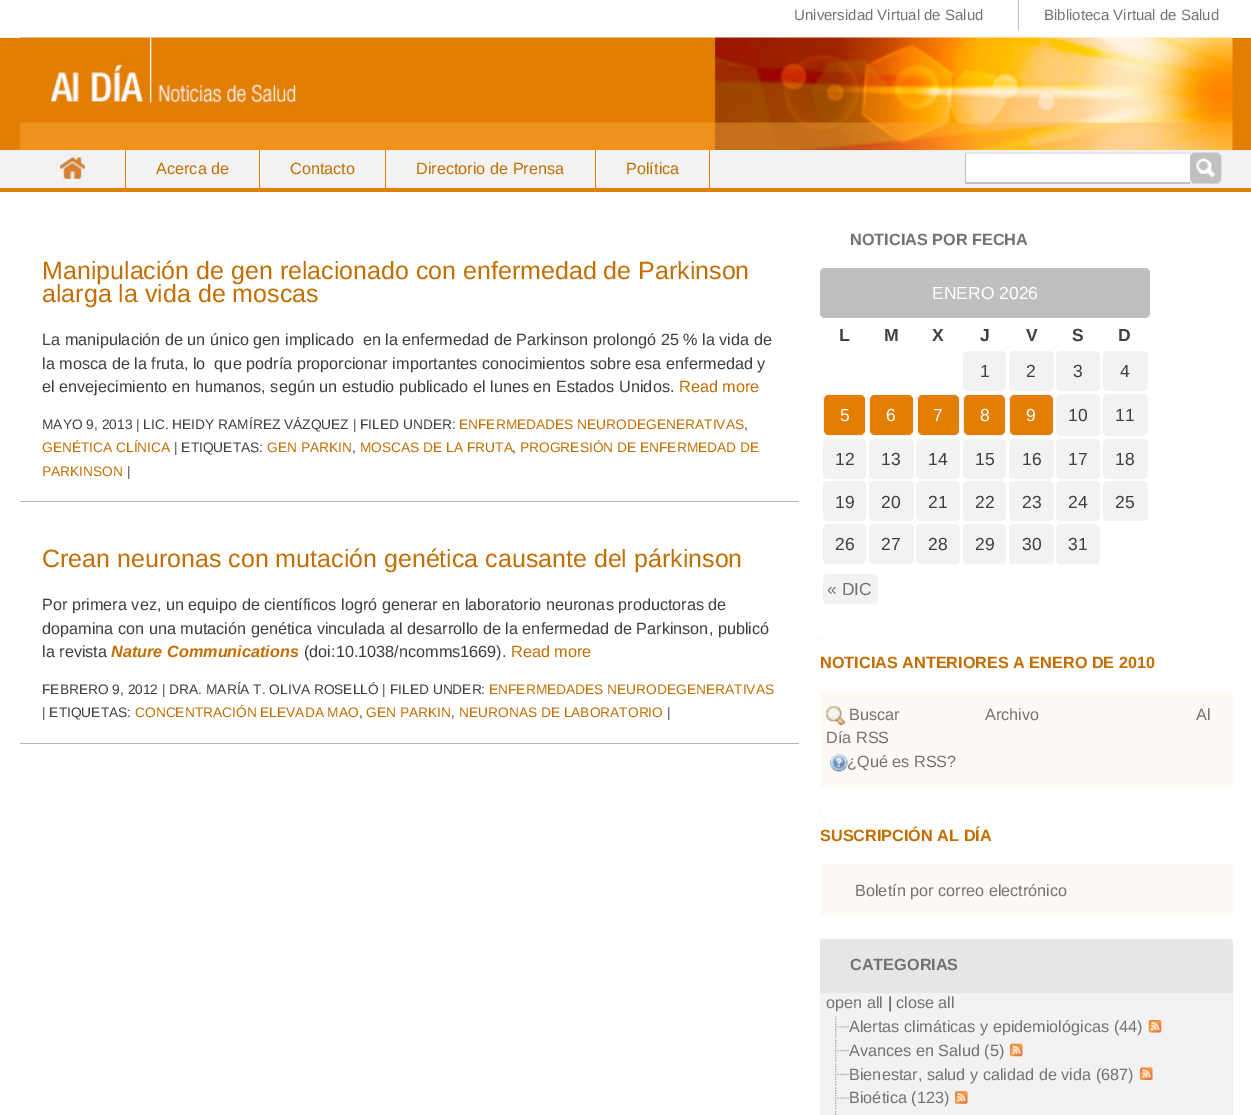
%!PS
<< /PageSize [1251 1115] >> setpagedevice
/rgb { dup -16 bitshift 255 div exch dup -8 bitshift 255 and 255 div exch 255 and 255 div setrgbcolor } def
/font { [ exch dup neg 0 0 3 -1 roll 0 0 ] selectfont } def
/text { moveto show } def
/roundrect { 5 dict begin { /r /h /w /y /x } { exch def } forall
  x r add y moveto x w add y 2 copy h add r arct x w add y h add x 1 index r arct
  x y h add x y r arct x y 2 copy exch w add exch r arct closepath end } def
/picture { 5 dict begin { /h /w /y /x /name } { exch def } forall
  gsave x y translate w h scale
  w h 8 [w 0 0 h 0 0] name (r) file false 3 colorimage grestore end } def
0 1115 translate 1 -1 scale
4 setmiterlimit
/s1 { /LiberationSans-Regular 15 font 16#737373 rgb } def
/s2 { /LiberationSans-Regular 16.25 font 16#C36E03 rgb } def
/s3 { /LiberationSans-Regular 25 font 16#C36E03 rgb } def
/s4 { /LiberationSans-Regular 16.25 font 16#3F3F3F rgb } def
/s5 { /LiberationSans-Regular 13.75 font 16#3F3F3F rgb } def
/s6 { /LiberationSans-Regular 13.75 font 16#C36E03 rgb } def
/s7 { /LiberationSans-BoldItalic 16.25 font 16#C36E03 rgb } def
/s8 { /LiberationSans-Bold 16.25 font 16#737373 rgb } def
/s9 { /LiberationSans-Regular 17.5 font 16#FFFFFF rgb } def
/s10 { /LiberationSans-Bold 17.5 font 16#3F3F3F rgb } def
/s11 { /LiberationSans-Regular 17.5 font 16#3F3F3F rgb } def
/s12 { /LiberationSans-Regular 17.5 font 16#737373 rgb } def
/s13 { /LiberationSans-Bold 16.25 font 16#C36E03 rgb } def
/s14 { /LiberationSans-Regular 16.25 font 16#737373 rgb } def
16#FFFFFF rgb
0 0 1251 1115 rectfill
s1
(Universidad Virtual de Salud) 794 20 text
16#BFBFBF rgb
1018 0 1 30 rectfill
s1
(Biblioteca Virtual de Salud) 1044 20 text
16#E27E02 rgb
0 38 1251 112 rectfill
(pic1.raw) 20 37 1213 113 picture
16#F2F2F2 rgb
0 150 1251 38 rectfill
16#E27E02 rgb
0 188 1251 4 rectfill
(pic2.raw) 60 157 25 22 picture
125 150 1 38 rectfill
259 150 1 38 rectfill
s2
(Acerca de) 156 174 text
16#E27E02 rgb
385 150 1 38 rectfill
s2
(Contacto) 290 174 text
16#E27E02 rgb
595 150 1 38 rectfill
s2
(Directorio de Prensa) 416 174 text
16#E27E02 rgb
709 150 1 38 rectfill
s2
(Política) 626 174 text
16#FFFFFF rgb
966 154 224 28 rectfill
16#E6E6E6 rgb
965 152 moveto 1191 152 lineto 1190 154 lineto 966 154 lineto closepath fill
16#C0C0C0 rgb
1191 184 moveto 965 184 lineto 966 182 lineto 1190 182 lineto closepath fill
965 153 1 31 rectfill
16#EFEFEF rgb
1190 153 31 31 rectfill
(pic3.raw) 1190 152 32 32 picture
s3
(Manipulación de gen relacionado con enfermedad de Parkinson) 42 279 text
(alarga la vida de moscas) 42 302 text
s4
(La manipulación de un único gen implicado  en la enfermedad de Parkinson prolongó 25 % la vida de) 42 345 text
(la mosca de la fruta, lo  que podría proporcionar importantes conocimientos sobre esa enfermedad y) 42 369 text
(el envejecimiento en humanos, según un estudio publicado el lunes en Estados Unidos.) 42 392 text
s2
(Read more) 679 392 text
s5
(MAYO 9, 2013 | LIC. HEIDY RAMÍREZ VÁZQUEZ | FILED UNDER:) 42 429 text
s6
(ENFERMEDADES NEURODEGENERATIVAS) 459 429 text
s5
(,) 744 429 text
s6
(GENÉTICA CLÍNICA) 42 452 text
s5
(| ETIQUETAS:) 174 452 text
s6
(GEN PARKIN) 267 452 text
s5
(,) 352 452 text
s6
(MOSCAS DE LA FRUTA) 360 452 text
s5
(,) 512 452 text
s6
(PROGRESIÓN DE ENFERMEDAD DE) 520 452 text
(PARKINSON) 42 476 text
s5
(|) 127 476 text
16#B5B5B5 rgb
20 501 779 1 rectfill
s3
(Crean neuronas con mutación genética causante del párkinson) 42 567 text
s4
(Por primera vez, un equipo de científicos logró generar en laboratorio neuronas productoras de) 42 610 text
(dopamina con una mutación genética vinculada al desarrollo de la enfermedad de Parkinson, publicó) 42 634 text
(la revista) 42 657 text
s7
(Nature Communications) 111 657 text
s4
(\(doi:10.1038/ncomms1669\).) 304 657 text
s2
(Read more) 511 657 text
s5
(FEBRERO 9, 2012 | DRA. MARÍA T. OLIVA ROSELLÓ | FILED UNDER:) 42 694 text
s6
(ENFERMEDADES NEURODEGENERATIVAS) 489 694 text
s5
(| ETIQUETAS:) 42 717 text
s6
(CONCENTRACIÓN ELEVADA MAO) 135 717 text
s5
(,) 359 717 text
s6
(GEN PARKIN) 366 717 text
s5
(,) 451 717 text
s6
(NEURONAS DE LABORATORIO) 459 717 text
s5
(|) 667 717 text
16#B5B5B5 rgb
20 743 779 1 rectfill
s8
(NOTICIAS POR FECHA) 850 245 text
16#BFBFBF rgb
820 268 330 50 5 roundrect fill
s9
(ENERO 2026) 932 299 text
s10
(L) 839 341 text
(M) 884 341 text
(X) 932 341 text
(J) 980 341 text
(V) 1026 341 text
(S) 1072 341 text
(D) 1118 341 text
16#F2F2F2 rgb
963 351 43 40 5 roundrect fill
s11
(1) 980 377 text
16#F2F2F2 rgb
1009 351 45 40 5 roundrect fill
s11
(2) 1026 377 text
16#F2F2F2 rgb
1056 351 44 40 5 roundrect fill
s11
(3) 1073 377 text
16#F2F2F2 rgb
1103 351 45 40 5 roundrect fill
s11
(4) 1120 377 text
16#F2F2F2 rgb
823 394 43 42 5 roundrect fill
16#E27E02 rgb
824 395 41 40 5 roundrect fill
s9
(5) 840 421 text
16#F2F2F2 rgb
869 394 45 42 5 roundrect fill
16#E27E02 rgb
870 395 43 40 5 roundrect fill
s9
(6) 886 421 text
16#F2F2F2 rgb
916 394 44 42 5 roundrect fill
16#E27E02 rgb
918 395 41 40 5 roundrect fill
s9
(7) 933 421 text
16#F2F2F2 rgb
963 394 43 42 5 roundrect fill
16#E27E02 rgb
964 395 41 40 5 roundrect fill
s9
(8) 980 421 text
16#F2F2F2 rgb
1009 394 45 42 5 roundrect fill
16#E27E02 rgb
1010 395 43 40 5 roundrect fill
s9
(9) 1026 421 text
16#F2F2F2 rgb
1056 394 44 42 5 roundrect fill
s11
(10) 1068 421 text
16#F2F2F2 rgb
1103 394 45 42 5 roundrect fill
s11
(11) 1115 421 text
16#F2F2F2 rgb
823 439 43 40 5 roundrect fill
s11
(12) 835 465 text
16#F2F2F2 rgb
869 439 45 40 5 roundrect fill
s11
(13) 881 465 text
16#F2F2F2 rgb
916 439 44 40 5 roundrect fill
s11
(14) 928 465 text
16#F2F2F2 rgb
963 439 43 40 5 roundrect fill
s11
(15) 975 465 text
16#F2F2F2 rgb
1009 439 45 40 5 roundrect fill
s11
(16) 1022 465 text
16#F2F2F2 rgb
1056 439 44 40 5 roundrect fill
s11
(17) 1068 465 text
16#F2F2F2 rgb
1103 439 45 40 5 roundrect fill
s11
(18) 1115 465 text
16#F2F2F2 rgb
823 481 43 40 5 roundrect fill
s11
(19) 835 508 text
16#F2F2F2 rgb
869 481 45 40 5 roundrect fill
s11
(20) 881 508 text
16#F2F2F2 rgb
916 481 44 40 5 roundrect fill
s11
(21) 928 508 text
16#F2F2F2 rgb
963 481 43 40 5 roundrect fill
s11
(22) 975 508 text
16#F2F2F2 rgb
1009 481 45 40 5 roundrect fill
s11
(23) 1022 508 text
16#F2F2F2 rgb
1056 481 44 40 5 roundrect fill
s11
(24) 1068 508 text
16#F2F2F2 rgb
1103 481 45 40 5 roundrect fill
s11
(25) 1115 508 text
16#F2F2F2 rgb
823 524 43 40 5 roundrect fill
s11
(26) 835 550 text
16#F2F2F2 rgb
869 524 45 40 5 roundrect fill
s11
(27) 881 550 text
16#F2F2F2 rgb
916 524 44 40 5 roundrect fill
s11
(28) 928 550 text
16#F2F2F2 rgb
963 524 43 40 5 roundrect fill
s11
(29) 975 550 text
16#F2F2F2 rgb
1009 524 45 40 5 roundrect fill
s11
(30) 1022 550 text
16#F2F2F2 rgb
1056 524 44 40 5 roundrect fill
s11
(31) 1068 550 text
16#F2F2F2 rgb
823 574 55 30 5 roundrect fill
s12
(« DIC) 827 595 text
16#F2F2F2 rgb
820 638 413 5 rectfill
16#FFFFFF rgb
825 638 moveto 1228 638 lineto 1231 638 1233 640 1233 643 curveto 1233 691 lineto 820 691 lineto 820 643 lineto 820 640 822 638 825 638 curveto closepath fill
s13
(NOTICIAS ANTERIORES A ENERO DE 2010) 820 668 text
16#FDF9F4 rgb
820 691 413 97 rectfill
(pic4.raw) 826 706 19 19 picture
s14
(Buscar) 849 720 text
(Archivo) 985 720 text
(Al) 1196 720 text
(Día RSS) 826 743 text
(pic5.raw) 830 753 18 20 picture
(¿Qué es RSS?) 847 767 text
16#F2F2F2 rgb
820 810 413 5 rectfill
16#FFFFFF rgb
825 810 moveto 1228 810 lineto 1231 810 1233 812 1233 815 curveto 1233 864 lineto 820 864 lineto 820 815 lineto 820 812 822 810 825 810 curveto closepath fill
s13
(SUSCRIPCIÓN AL DÍA) 820 841 text
16#FDF9F4 rgb
820 864 413 52 rectfill
s14
(Boletín por correo electrónico) 855 896 text
16#F2F2F2 rgb
820 939 413 176 rectfill
16#E6E6E6 rgb
825 939 moveto 1228 939 lineto 1231 939 1233 941 1233 944 curveto 1233 993 lineto 820 993 lineto 820 944 lineto 820 941 822 939 825 939 curveto closepath fill
s8
(CATEGORIAS) 850 970 text
s14
(open all) 826 1008 text
s4
(|) 888 1008 text
s14
(close all) 896 1008 text
(pic6.raw) 834 1016 15 22 picture
(Alertas climáticas y epidemiológicas \(44\)) 849 1032 text
(pic7.raw) 1148 1020 14 13 picture
(pic8.raw) 834 1040 15 22 picture
(Avances en Salud \(5\)) 849 1056 text
(pic9.raw) 1010 1043 13 14 picture
(pic10.raw) 834 1063 15 23 picture
(Bienestar, salud y calidad de vida \(687\)) 849 1080 text
(pic11.raw) 1140 1067 13 13 picture
(pic12.raw) 834 1087 15 22 picture
(Bioética \(123\)) 849 1103 text
(pic13.raw) 955 1091 13 13 picture
(pic14.raw) 834 1111 3 4 picture
showpage
